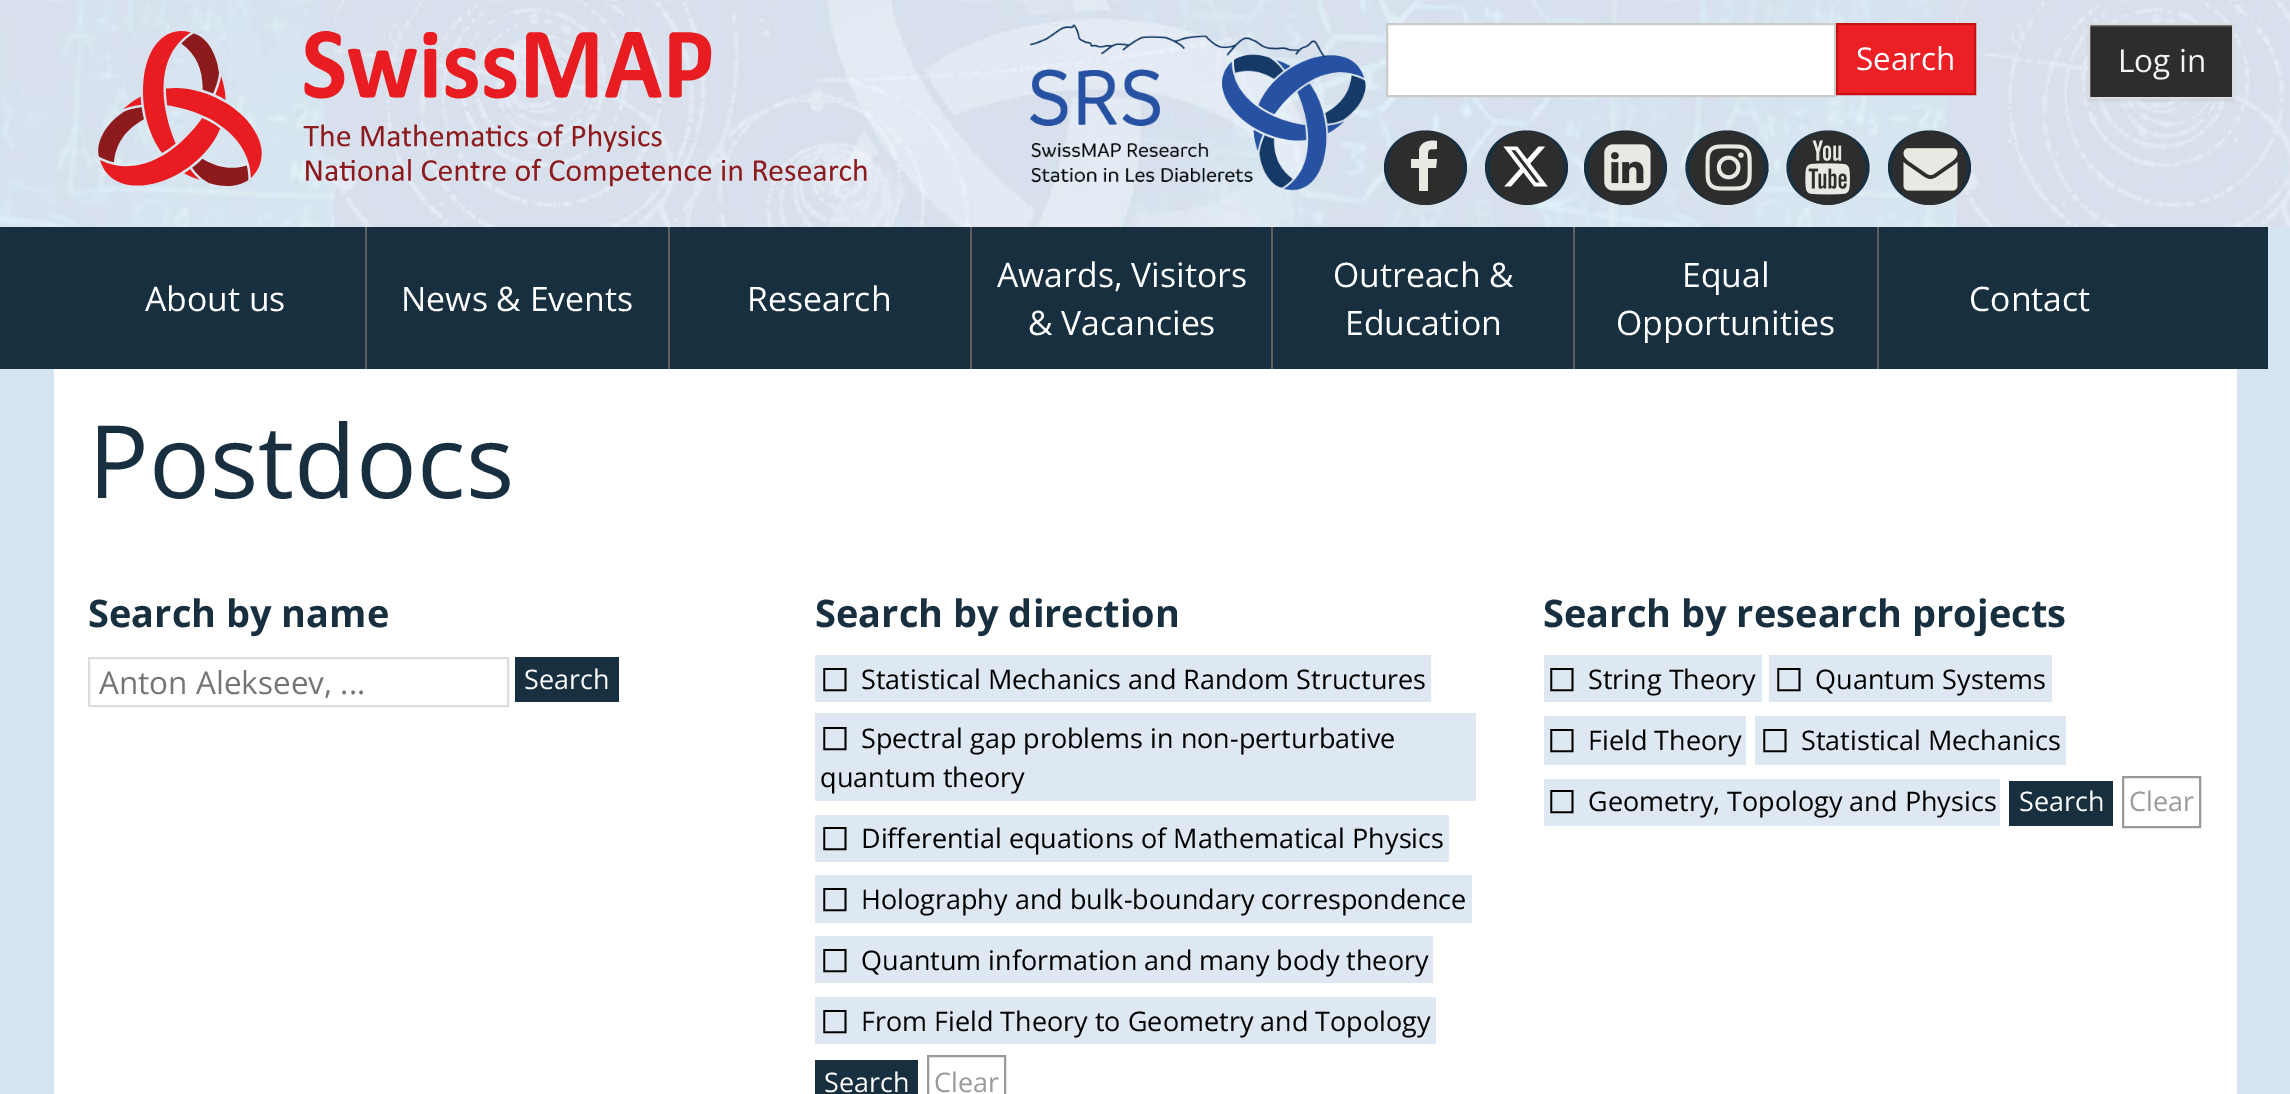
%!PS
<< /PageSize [2290 1094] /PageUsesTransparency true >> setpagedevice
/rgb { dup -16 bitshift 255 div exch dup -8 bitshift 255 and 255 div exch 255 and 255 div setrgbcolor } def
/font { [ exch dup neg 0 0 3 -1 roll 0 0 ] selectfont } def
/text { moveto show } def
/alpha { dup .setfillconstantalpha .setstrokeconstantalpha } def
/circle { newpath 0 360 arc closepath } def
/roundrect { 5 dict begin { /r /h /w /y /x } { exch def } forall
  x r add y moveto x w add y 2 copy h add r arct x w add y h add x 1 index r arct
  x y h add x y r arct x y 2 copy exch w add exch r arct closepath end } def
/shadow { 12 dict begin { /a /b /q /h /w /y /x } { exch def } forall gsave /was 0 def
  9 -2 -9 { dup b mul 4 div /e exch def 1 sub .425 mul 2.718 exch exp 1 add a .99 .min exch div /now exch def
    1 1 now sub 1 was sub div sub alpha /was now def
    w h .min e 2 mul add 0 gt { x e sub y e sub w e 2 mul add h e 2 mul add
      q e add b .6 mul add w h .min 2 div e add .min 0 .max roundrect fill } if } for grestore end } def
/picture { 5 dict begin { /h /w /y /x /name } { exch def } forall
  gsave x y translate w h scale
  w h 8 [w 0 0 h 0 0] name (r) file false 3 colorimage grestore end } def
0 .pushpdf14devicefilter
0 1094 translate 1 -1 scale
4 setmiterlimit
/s1 { /OpenSans-Regular 31.5 font 16#FFFFFF rgb } def
/s2 { /OpenSans-Regular 31.5 font 16#F3F3F2 rgb } def
/s3 { /OpenSans-Regular 33.75 font 16#FFFFFF rgb } def
/s4 { /OpenSans-Regular 101.25 font 16#182F40 rgb } def
/s5 { /OpenSans-Bold 38 font 16#182F40 rgb } def
/s6 { /OpenSans-Regular 31.5 font 16#757575 rgb } def
/s7 { /OpenSans-Regular 27 font 16#FFFFFF rgb } def
/s8 { /DejaVuSans-Regular 36 font 16#000000 rgb } def
/s9 { /OpenSans-Regular 27 font 16#000000 rgb } def
/s10 { /OpenSans-Regular 27 font 16#999999 rgb } def
16#D6E3F1 rgb
0 0 2290 1094 rectfill
(pic1.raw) 0 0 2290 227 picture
(pic2.raw) 98 31 769 156 picture
(pic3.raw) 1030 24 336 167 picture
16#FFFFFF rgb
1387 24 moveto 1835 24 lineto 1835 96 lineto 1387 96 lineto closepath gsave fill grestore
16#CBCBCB rgb
2 setlinewidth
stroke
16#EC1F24 rgb
1837 24 moveto 1975 24 lineto 1975 94 lineto 1837 94 lineto closepath gsave fill grestore
16#C71115 rgb
stroke
s1
(Search) 1856 70 text
16#182F40 rgb
1425.5 130.5 moveto 1448.5 130.5 1467 147 1467 167.5 curveto 1467 188 1448.5 204.5 1425.5 204.5 curveto 1402.5 204.5 1384 188 1384 167.5 curveto 1384 147 1402.5 130.5 1425.5 130.5 curveto closepath fill
16#2D2D2D rgb
1388 131 75 74 37 roundrect fill
16#E6EAE3 rgb
1437 141 moveto 1437 149 lineto 1427 149 1428 149 1428 159 curveto 1437 159 lineto 1436 168 lineto 1428 168 lineto 1428 191 lineto 1419 191 lineto 1419 168 lineto 1411 168 lineto 1411 159 lineto 1419 159 lineto 1419 150 lineto 1421 141 1430 140 1437 141 curveto closepath fill
16#182F40 rgb
1526.5 130.5 moveto 1549.5 130.5 1568 147 1568 167.5 curveto 1568 188 1549.5 204.5 1526.5 204.5 curveto 1503.5 204.5 1485 188 1485 167.5 curveto 1485 147 1503.5 130.5 1526.5 130.5 curveto closepath fill
16#2D2D2D rgb
1527 168 37 circle fill
(pic4.raw) 1503 146 45 41 picture
16#182F40 rgb
1625.5 130.5 moveto 1648.5 130.5 1667 147 1667 167.5 curveto 1667 188 1648.5 204.5 1625.5 204.5 curveto 1602.5 204.5 1584 188 1584 167.5 curveto 1584 147 1602.5 130.5 1625.5 130.5 curveto closepath fill
16#2D2D2D rgb
1626 168 37 circle fill
(pic5.raw) 1604 144 47 47 picture
16#182F40 rgb
1727 130.5 moveto 1750 130.5 1768.5 147 1768.5 167.5 curveto 1768.5 188 1750 204.5 1727 204.5 curveto 1704 204.5 1685.5 188 1685.5 167.5 curveto 1685.5 147 1704 130.5 1727 130.5 curveto closepath fill
16#2D2D2D rgb
1727 168 37 circle fill
(pic6.raw) 1705 144 47 47 picture
16#182F40 rgb
1828 130.5 moveto 1851 130.5 1869.5 147 1869.5 167.5 curveto 1869.5 188 1851 204.5 1828 204.5 curveto 1805 204.5 1786.5 188 1786.5 167.5 curveto 1786.5 147 1805 130.5 1828 130.5 curveto closepath fill
16#2D2D2D rgb
1828 168 37 circle fill
(pic7.raw) 1805 140 45 55 picture
16#182F40 rgb
1929.5 130.5 moveto 1952.5 130.5 1971 147 1971 167.5 curveto 1971 188 1952.5 204.5 1929.5 204.5 curveto 1906.5 204.5 1888 188 1888 167.5 curveto 1888 147 1906.5 130.5 1929.5 130.5 curveto closepath fill
16#2D2D2D rgb
1892 131 75 74 37 roundrect fill
(pic8.raw) 1903 148 55 43 picture
16#000000 rgb
2088 25 146 76 0 1 0.07 shadow
16#2D2D2D rgb
2090 27 142 70 rectfill
16#4D4D4D rgb
2090 25 142 2 rectfill
16#DDDDDD rgb
2089 24 144 74 rectstroke
s2
(Log in) 2118 72 text
16#182F40 rgb
0 227 2268 142 rectfill
16#5E5E5E rgb
365 227 2 142 rectfill
s3
(About us) 145 311 text
16#5E5E5E rgb
668 227 2 142 rectfill
s3
(News & Events) 401 311 text
16#5E5E5E rgb
970 227 2 142 rectfill
s3
(Research) 747 311 text
16#5E5E5E rgb
1271 227 2 142 rectfill
s3
(Awards, Visitors) 997 287 text
(& Vacancies) 1028 335 text
16#5E5E5E rgb
1573 227 2 142 rectfill
s3
(Outreach &) 1333 287 text
(Education) 1345 335 text
16#5E5E5E rgb
1877 227 2 142 rectfill
s3
(Equal) 1682 287 text
(Opportunities) 1616 335 text
(Contact) 1969 311 text
54 369 2183 725 rectfill
s4
(Postdocs) 88 498 text
s5
(Search by name) 88 627 text
16#DDDDDD rgb
89 658 419 48 rectstroke
s6
(Anton Alekseev, ...) 99 694 text
16#182F40 rgb
515 657 104 45 rectfill
s7
(Search) 524 689 text
s5
(Search by direction) 815 627 text
16#DDE8F3 rgb
815 655 616 47 rectfill
s8
(◻) 820 689 text
s9
(Statistical Mechanics and Random Structures) 861 689 text
16#DDE8F3 rgb
815 713 661 88 rectfill
s8
(◻) 820 748 text
s9
(Spectral gap problems in non-perturbative) 861 748 text
(quantum theory) 820 787 text
16#DDE8F3 rgb
815 815 634 47 rectfill
s8
(◻) 820 848 text
s9
(Differential equations of Mathematical Physics) 861 848 text
16#DDE8F3 rgb
815 875 657 48 rectfill
s8
(◻) 820 909 text
s9
(Holography and bulk-boundary correspondence) 861 909 text
16#DDE8F3 rgb
815 936 618 47 rectfill
s8
(◻) 820 970 text
s9
(Quantum information and many body theory) 861 970 text
16#DDE8F3 rgb
815 997 621 47 rectfill
s8
(◻) 820 1031 text
s9
(From Field Theory to Geometry and Topology) 861 1031 text
16#182F40 rgb
815 1060 103 34 rectfill
s7
(Search) 824 1092 text
16#999999 rgb
928 1056 77 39 rectstroke
(Clear) 934 1092 text
s5
(Search by research projects) 1543 627 text
16#DDE8F3 rgb
1544 655 218 47 rectfill
s8
(◻) 1547 689 text
s9
(String Theory) 1588 689 text
16#DDE8F3 rgb
1769 655 283 47 rectfill
s8
(◻) 1774 689 text
s9
(Quantum Systems) 1815 689 text
16#DDE8F3 rgb
1544 716 202 49 rectfill
s8
(◻) 1547 750 text
s9
(Field Theory) 1588 750 text
16#DDE8F3 rgb
1755 716 311 49 rectfill
s8
(◻) 1760 750 text
s9
(Statistical Mechanics) 1801 750 text
16#DDE8F3 rgb
1544 779 456 47 rectfill
s8
(◻) 1547 811 text
s9
(Geometry, Topology and Physics) 1588 811 text
16#182F40 rgb
2009 781 104 45 rectfill
s7
(Search) 2019 811 text
16#999999 rgb
2123 777 77 50 rectstroke
(Clear) 2129 811 text
.poppdf14devicefilter showpage
